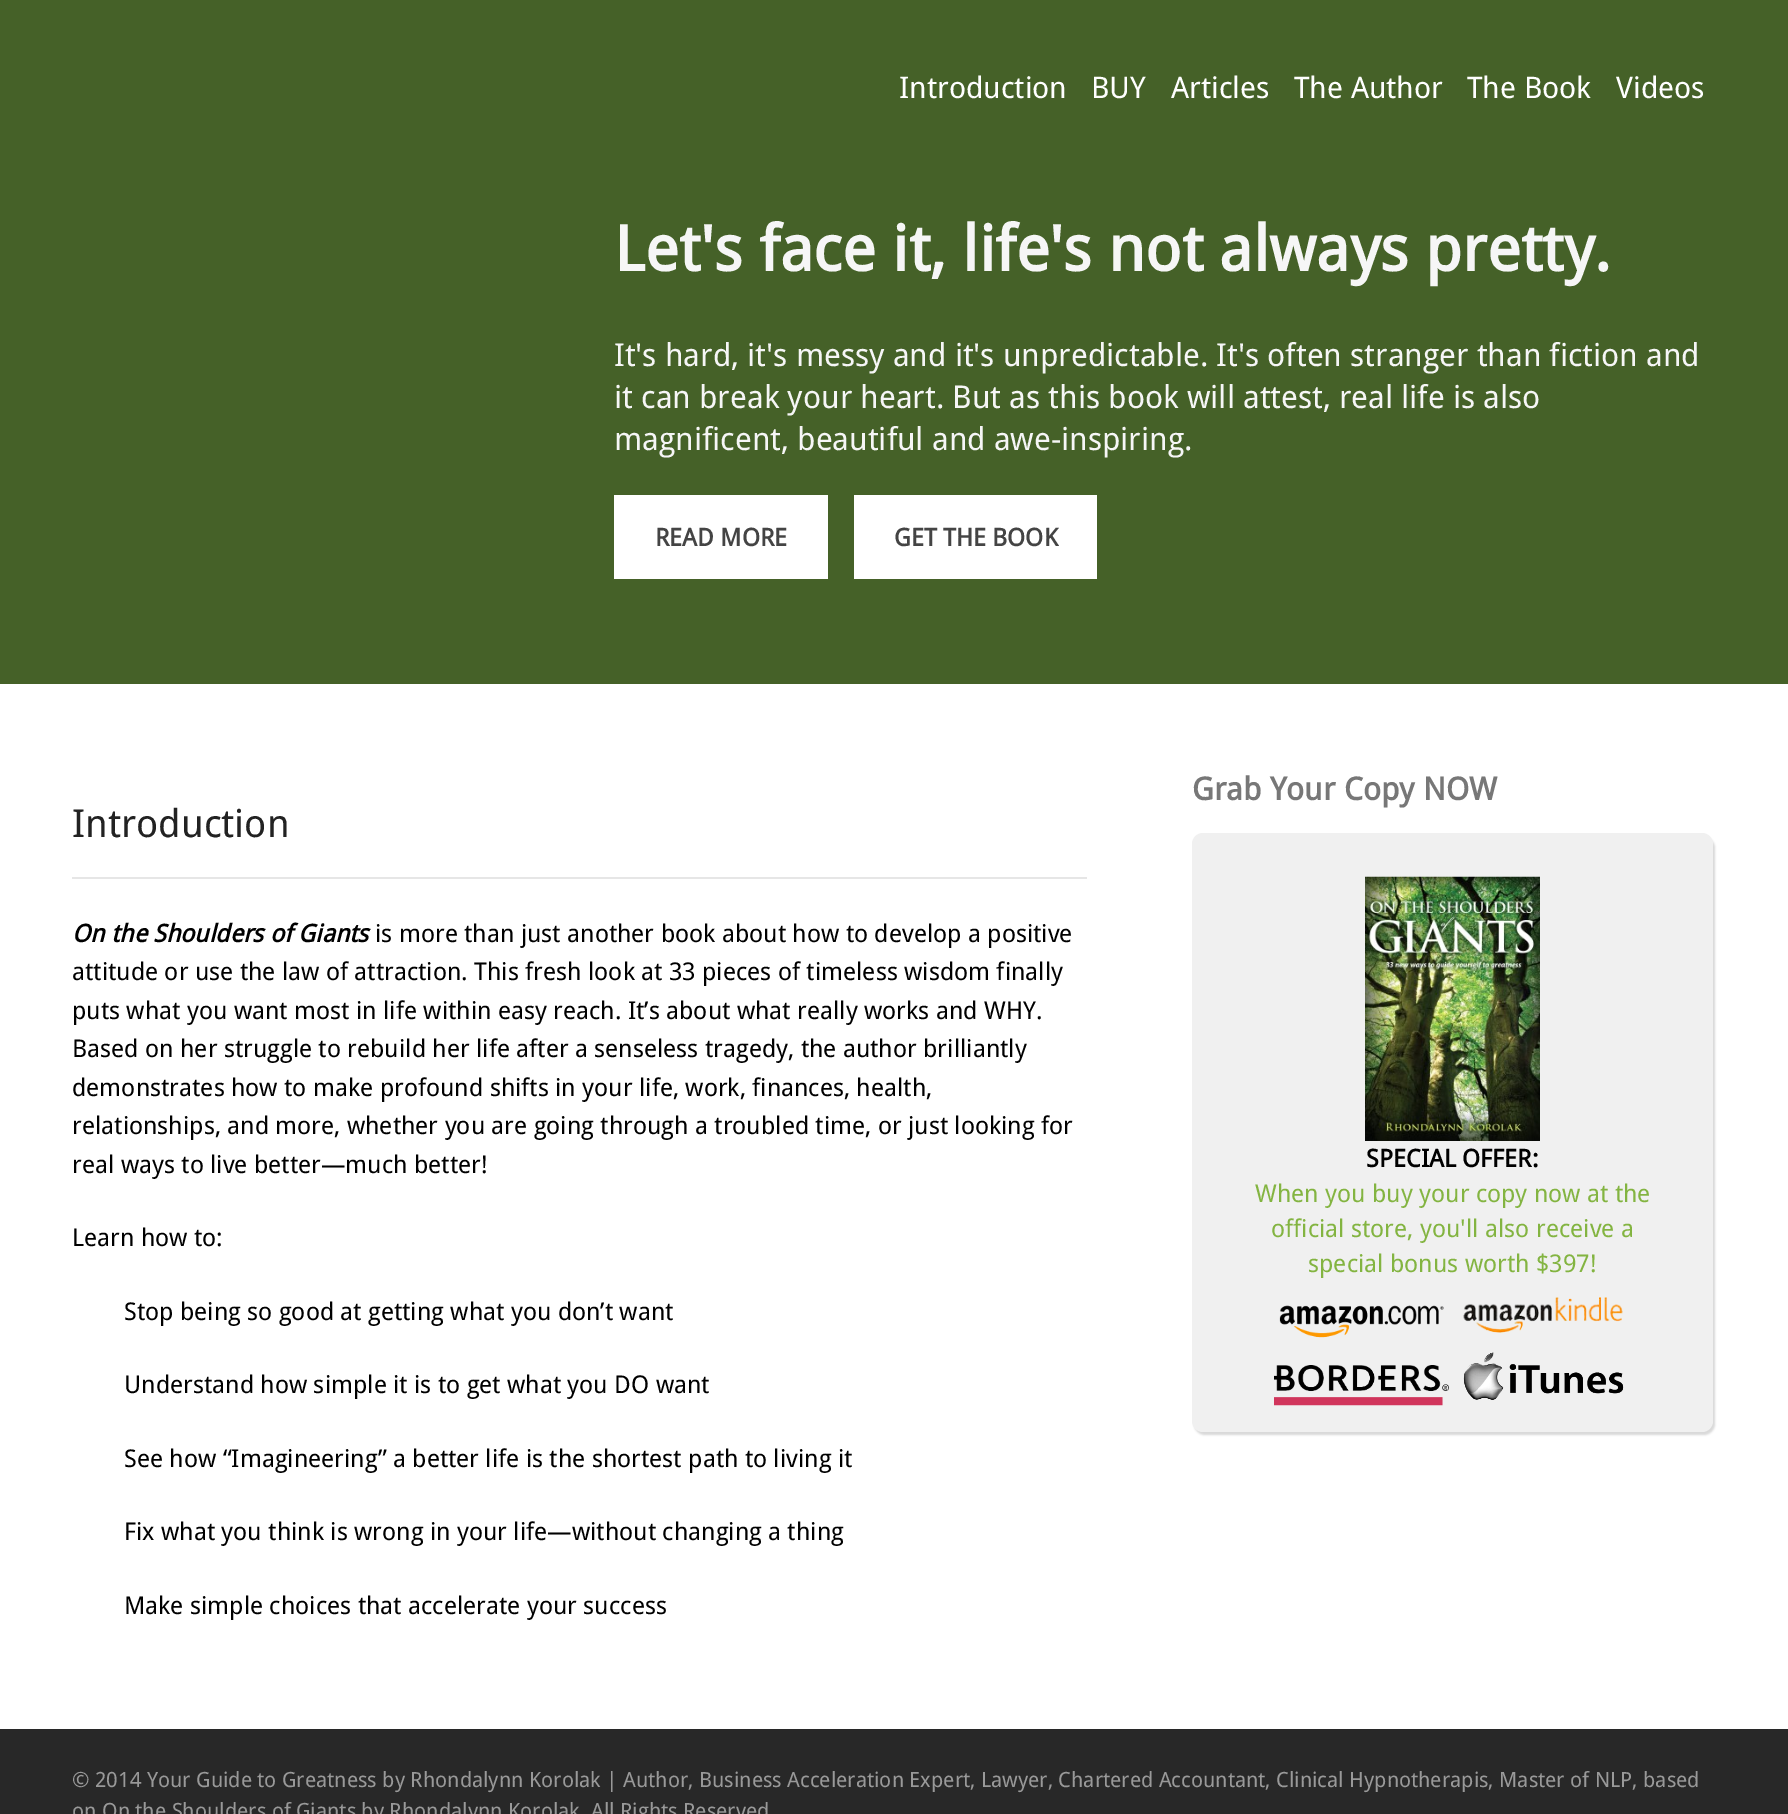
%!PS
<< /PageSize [1788 1814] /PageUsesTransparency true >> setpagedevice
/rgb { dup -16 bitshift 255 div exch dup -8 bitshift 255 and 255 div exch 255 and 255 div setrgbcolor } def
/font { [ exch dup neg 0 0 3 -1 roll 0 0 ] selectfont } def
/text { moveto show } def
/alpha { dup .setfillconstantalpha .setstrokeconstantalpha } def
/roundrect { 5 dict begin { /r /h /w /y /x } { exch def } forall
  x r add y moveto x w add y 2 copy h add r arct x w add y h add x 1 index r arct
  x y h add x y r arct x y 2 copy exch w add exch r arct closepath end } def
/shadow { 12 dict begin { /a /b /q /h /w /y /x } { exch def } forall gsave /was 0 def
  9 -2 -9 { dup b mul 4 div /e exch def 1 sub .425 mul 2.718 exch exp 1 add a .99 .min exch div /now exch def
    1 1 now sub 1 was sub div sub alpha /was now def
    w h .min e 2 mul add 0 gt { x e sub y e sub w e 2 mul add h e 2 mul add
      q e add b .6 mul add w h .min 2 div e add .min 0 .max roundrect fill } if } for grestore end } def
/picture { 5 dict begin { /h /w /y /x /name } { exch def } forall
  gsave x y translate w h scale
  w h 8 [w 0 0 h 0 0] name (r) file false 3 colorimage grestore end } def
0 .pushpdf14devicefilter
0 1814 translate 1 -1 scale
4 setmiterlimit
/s1 { /DroidSans-Regular 29.75 font 16#FFFFFF rgb } def
/s2 { /DroidSans-Bold 63 font 16#F6F6F6 rgb } def
/s3 { /DroidSans-Regular 31.5 font 16#F6F6F6 rgb } def
/s4 { /DroidSans-Bold 24.5 font 16#444444 rgb } def
/s5 { /DroidSans-Regular 38.5 font 16#222222 rgb } def
/s6 { /DroidSans-BoldItalic 24.5 font 16#000000 rgb } def
/s7 { /DroidSans-Regular 24.5 font 16#000000 rgb } def
/s8 { /DroidSans-Bold 31.5 font 16#777777 rgb } def
/s9 { /DroidSans-Bold 24.5 font 16#000000 rgb } def
/s10 { /DroidSans-Regular 24.5 font 16#83B441 rgb } def
/s11 { /DroidSans-Regular 21 font 16#999999 rgb } def
16#282828 rgb
0 0 1788 1814 rectfill
16#FFFFFF rgb
0 684 1788 1045 rectfill
16#456128 rgb
0 0 1788 684 rectfill
s1
(Introduction) 899 98 text
(BUY) 1091 98 text
(Articles) 1171 98 text
(The Author) 1294 98 text
(The Book) 1467 98 text
(Videos) 1616 98 text
s2
(Let's face it, life's not always pretty.) 614 271 text
s3
(It's hard, it's messy and it's unpredictable. It's often stranger than fiction and) 614 366 text
(it can break your heart. But as this book will attest, real life is also) 614 408 text
(magnificent, beautiful and awe-inspiring.) 614 450 text
16#FFFFFF rgb
614 495 214 84 rectfill
s4
(READ MORE) 655 546 text
16#FFFFFF rgb
854 495 243 84 rectfill
s4
(GET THE BOOK) 894 546 text
16#E6E6E6 rgb
72 877 1015 2 rectfill
s5
(Introduction) 72 837 text
s6
(On the Shoulders of Giants) 72 942 text
s7
(is more than just another book about how to develop a positive) 375 942 text
(attitude or use the law of attraction. This fresh look at 33 pieces of timeless wisdom finally) 72 980 text
(puts what you want most in life within easy reach. It’s about what really works and WHY.) 72 1019 text
(Based on her struggle to rebuild her life after a senseless tragedy, the author brilliantly) 72 1057 text
(demonstrates how to make profound shifts in your life, work, finances, health,) 72 1096 text
(relationships, and more, whether you are going through a troubled time, or just looking for) 72 1134 text
(real ways to live better—much better!) 72 1173 text
(Learn how to:) 72 1246 text
(Stop being so good at getting what you don’t want) 124 1320 text
(Understand how simple it is to get what you DO want) 124 1393 text
(See how “Imagineering” a better life is the shortest path to living it) 124 1467 text
(Fix what you think is wrong in your life—without changing a thing) 124 1540 text
(Make simple choices that accelerate your success) 124 1614 text
s8
(Grab Your Copy NOW) 1192 800 text
16#000000 rgb
1194 837 521 598 11 1 0.15 shadow
16#F0F0F0 rgb
1192 833 521 599 11 roundrect fill
(pic1.raw) 1365 876 175 265 picture
s9
(SPECIAL OFFER:) 1366 1167 text
s10
(When you buy your copy now at the) 1255 1202 text
(official store, you'll also receive a) 1271 1237 text
(special bonus worth $397!) 1308 1272 text
(pic2.raw) 1279 1305 165 33 picture
(pic3.raw) 1463 1297 160 36 picture
(pic4.raw) 1274 1365 175 41 picture
(pic5.raw) 1463 1352 161 48 picture
s11
(© 2014 Your Guide to Greatness by Rhondalynn Korolak | Author, Business Acceleration Expert, Lawyer, Chartered Accountant, Clinical Hypnotherapis, Master of NLP, based) 72 1787 text
(on On the Shoulders of Giants by Rhondalynn Korolak. All Rights Reserved) 72 1818 text
.poppdf14devicefilter showpage
